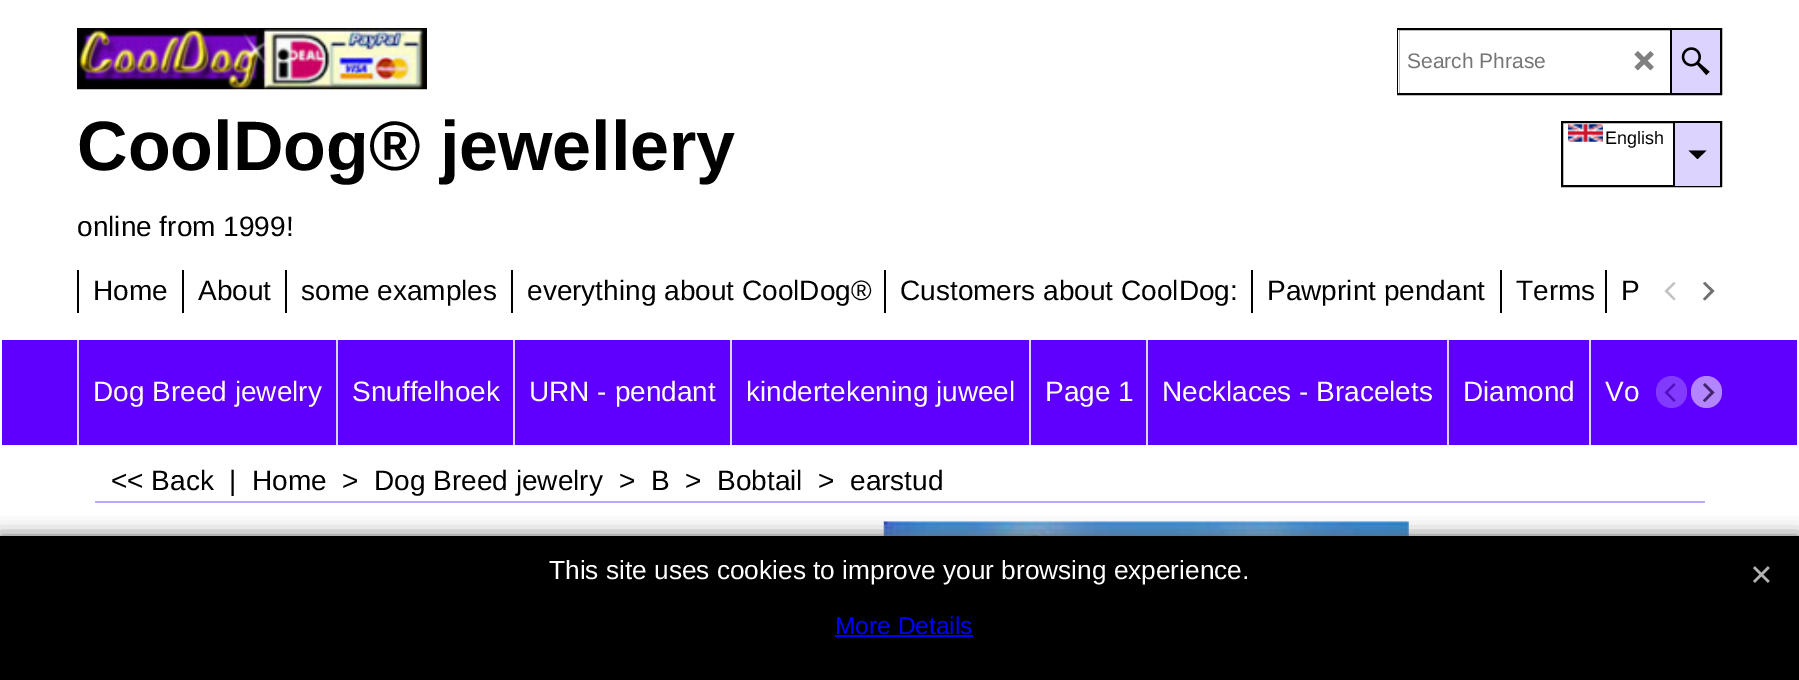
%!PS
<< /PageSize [1799 680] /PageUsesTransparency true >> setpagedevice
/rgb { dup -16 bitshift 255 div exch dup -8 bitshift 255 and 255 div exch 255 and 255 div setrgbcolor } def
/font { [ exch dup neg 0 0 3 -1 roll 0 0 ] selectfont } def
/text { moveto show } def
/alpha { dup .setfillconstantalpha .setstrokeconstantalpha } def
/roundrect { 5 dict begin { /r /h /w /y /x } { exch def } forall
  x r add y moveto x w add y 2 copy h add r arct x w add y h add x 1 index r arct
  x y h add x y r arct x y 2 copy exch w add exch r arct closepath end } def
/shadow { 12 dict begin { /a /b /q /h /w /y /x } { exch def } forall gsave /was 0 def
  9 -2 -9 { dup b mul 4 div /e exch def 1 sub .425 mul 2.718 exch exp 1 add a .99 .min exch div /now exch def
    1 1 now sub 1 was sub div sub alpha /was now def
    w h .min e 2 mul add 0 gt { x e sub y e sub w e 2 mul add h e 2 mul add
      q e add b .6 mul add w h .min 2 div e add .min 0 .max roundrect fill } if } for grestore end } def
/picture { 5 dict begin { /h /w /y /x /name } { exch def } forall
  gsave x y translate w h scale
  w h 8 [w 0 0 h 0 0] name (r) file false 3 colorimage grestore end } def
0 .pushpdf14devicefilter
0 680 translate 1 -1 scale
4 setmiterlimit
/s1 { /LiberationSans-Regular 21 font 16#757575 rgb } def
/s2 { /LiberationSans-Regular 18 font 16#000000 rgb } def
/s3 { /LiberationSans-Bold 70 font 16#000000 rgb } def
/s4 { /LiberationSans-Regular 28 font 16#000000 rgb } def
/s5 { /LiberationSans-Regular 28 font 16#FFFFFF rgb } def
/s6 { /LiberationSans-Regular 26.25 font 16#FFFFFF rgb } def
/s7 { /LiberationSans-Regular 24.5 font 16#0000FF rgb } def
16#FFFFFF rgb
0 0 1799 680 rectfill
16#000000 rgb
2 setlinewidth
1398 29 323 65 rectstroke
16#FFFFFF rgb
1398 30 1 63 rectfill
s1
(Search Phrase) 1407 68 text
(pic1.raw) 1634 51 20 20 picture
16#DDD3FF rgb
1672 30 48 63 rectfill
16#000000 rgb
1670 30 2 63 rectfill
(pic2.raw) 1681 47 29 29 picture
1562 122 159 64 rectstroke
(pic3.raw) 1568 124 35 18 picture
s2
(English) 1605 144 text
16#DDD3FF rgb
1675 123 45 63 rectfill
16#000000 rgb
1673 123 2 63 rectfill
1688.5 150.5 moveto 1697.5 159 lineto 1706.5 150.5 lineto closepath fill
(pic4.raw) 77 28 350 62 picture
s3
(CoolDog® jewellery) 77 170 text
s4
(online from 1999!) 77 236 text
77 270 2 43 rectfill
(Home) 93 300 text
182 270 2 43 rectfill
(About) 198 300 text
285 270 2 43 rectfill
(some examples) 301 300 text
511 270 2 43 rectfill
(everything about CoolDog®) 527 300 text
884 270 2 43 rectfill
(Customers about CoolDog:) 900 300 text
1251 270 2 43 rectfill
(Pawprint pendant) 1267 300 text
1500 270 2 43 rectfill
(Terms) 1516 300 text
1605 270 2 43 rectfill
(P) 1621 300 text
16#C2C2C2 rgb
1664.5 291 moveto 1674 300.5 lineto 1675.5 299 lineto 1668 291 lineto 1675.5 283.5 lineto 1674 282 lineto closepath fill
16#707070 rgb
1714.5 291 moveto 1705 282 lineto 1703 283.5 lineto 1710.5 291 lineto 1703 299 lineto 1705 300.5 lineto closepath fill
16#5F00FF rgb
2 340 1795 105 rectfill
16#DDD3FF rgb
77 340 2 105 rectfill
s5
(Dog Breed jewelry) 93 401 text
16#DDD3FF rgb
336 340 2 105 rectfill
s5
(Snuffelhoek) 352 401 text
16#DDD3FF rgb
513 340 2 105 rectfill
s5
(URN - pendant) 529 401 text
16#DDD3FF rgb
730 340 2 105 rectfill
s5
(kindertekening juweel) 746 401 text
16#DDD3FF rgb
1029 340 2 105 rectfill
s5
(Page 1) 1045 401 text
16#DDD3FF rgb
1146 340 2 105 rectfill
s5
(Necklaces - Bracelets) 1162 401 text
16#DDD3FF rgb
1447 340 2 105 rectfill
s5
(Diamond) 1463 401 text
16#DDD3FF rgb
1589 340 2 105 rectfill
s5
(Vo) 1605 401 text
16#833AFF rgb
1656 376 31 32 15.5 roundrect fill
16#520FC2 rgb
1664.5 392.5 moveto 1674 402 lineto 1675.5 400.5 lineto 1668 392.5 lineto 1675.5 385 lineto 1674 383 lineto closepath fill
16#B386FF rgb
1691 376 31 32 15.5 roundrect fill
16#402470 rgb
1714.5 392.5 moveto 1705 383 lineto 1703 385 lineto 1710.5 392.5 lineto 1703 400.5 lineto 1705 402 lineto closepath fill
16#BCA8FF rgb
95 501 1610 2 rectfill
s4
(<< Back) 111 490 text
(|) 229 490 text
(Home) 252 490 text
(>) 342 490 text
(Dog Breed jewelry) 374 490 text
(>) 619 490 text
(B) 651 490 text
(>) 685 490 text
(Bobtail) 717 490 text
(>) 818 490 text
(earstud) 850 490 text
(pic5.raw) 883 521 526 15 picture
16#666666 rgb
0 536 1799 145 0 9 1 shadow
16#000000 rgb
0 536 1799 144 rectfill
s6
(This site uses cookies to improve your browsing experience.) 549 579 text
s7
(More Details) 835 634 text
835 635 138 2 rectfill
(pic6.raw) 1753 566 17 17 picture
.poppdf14devicefilter showpage
